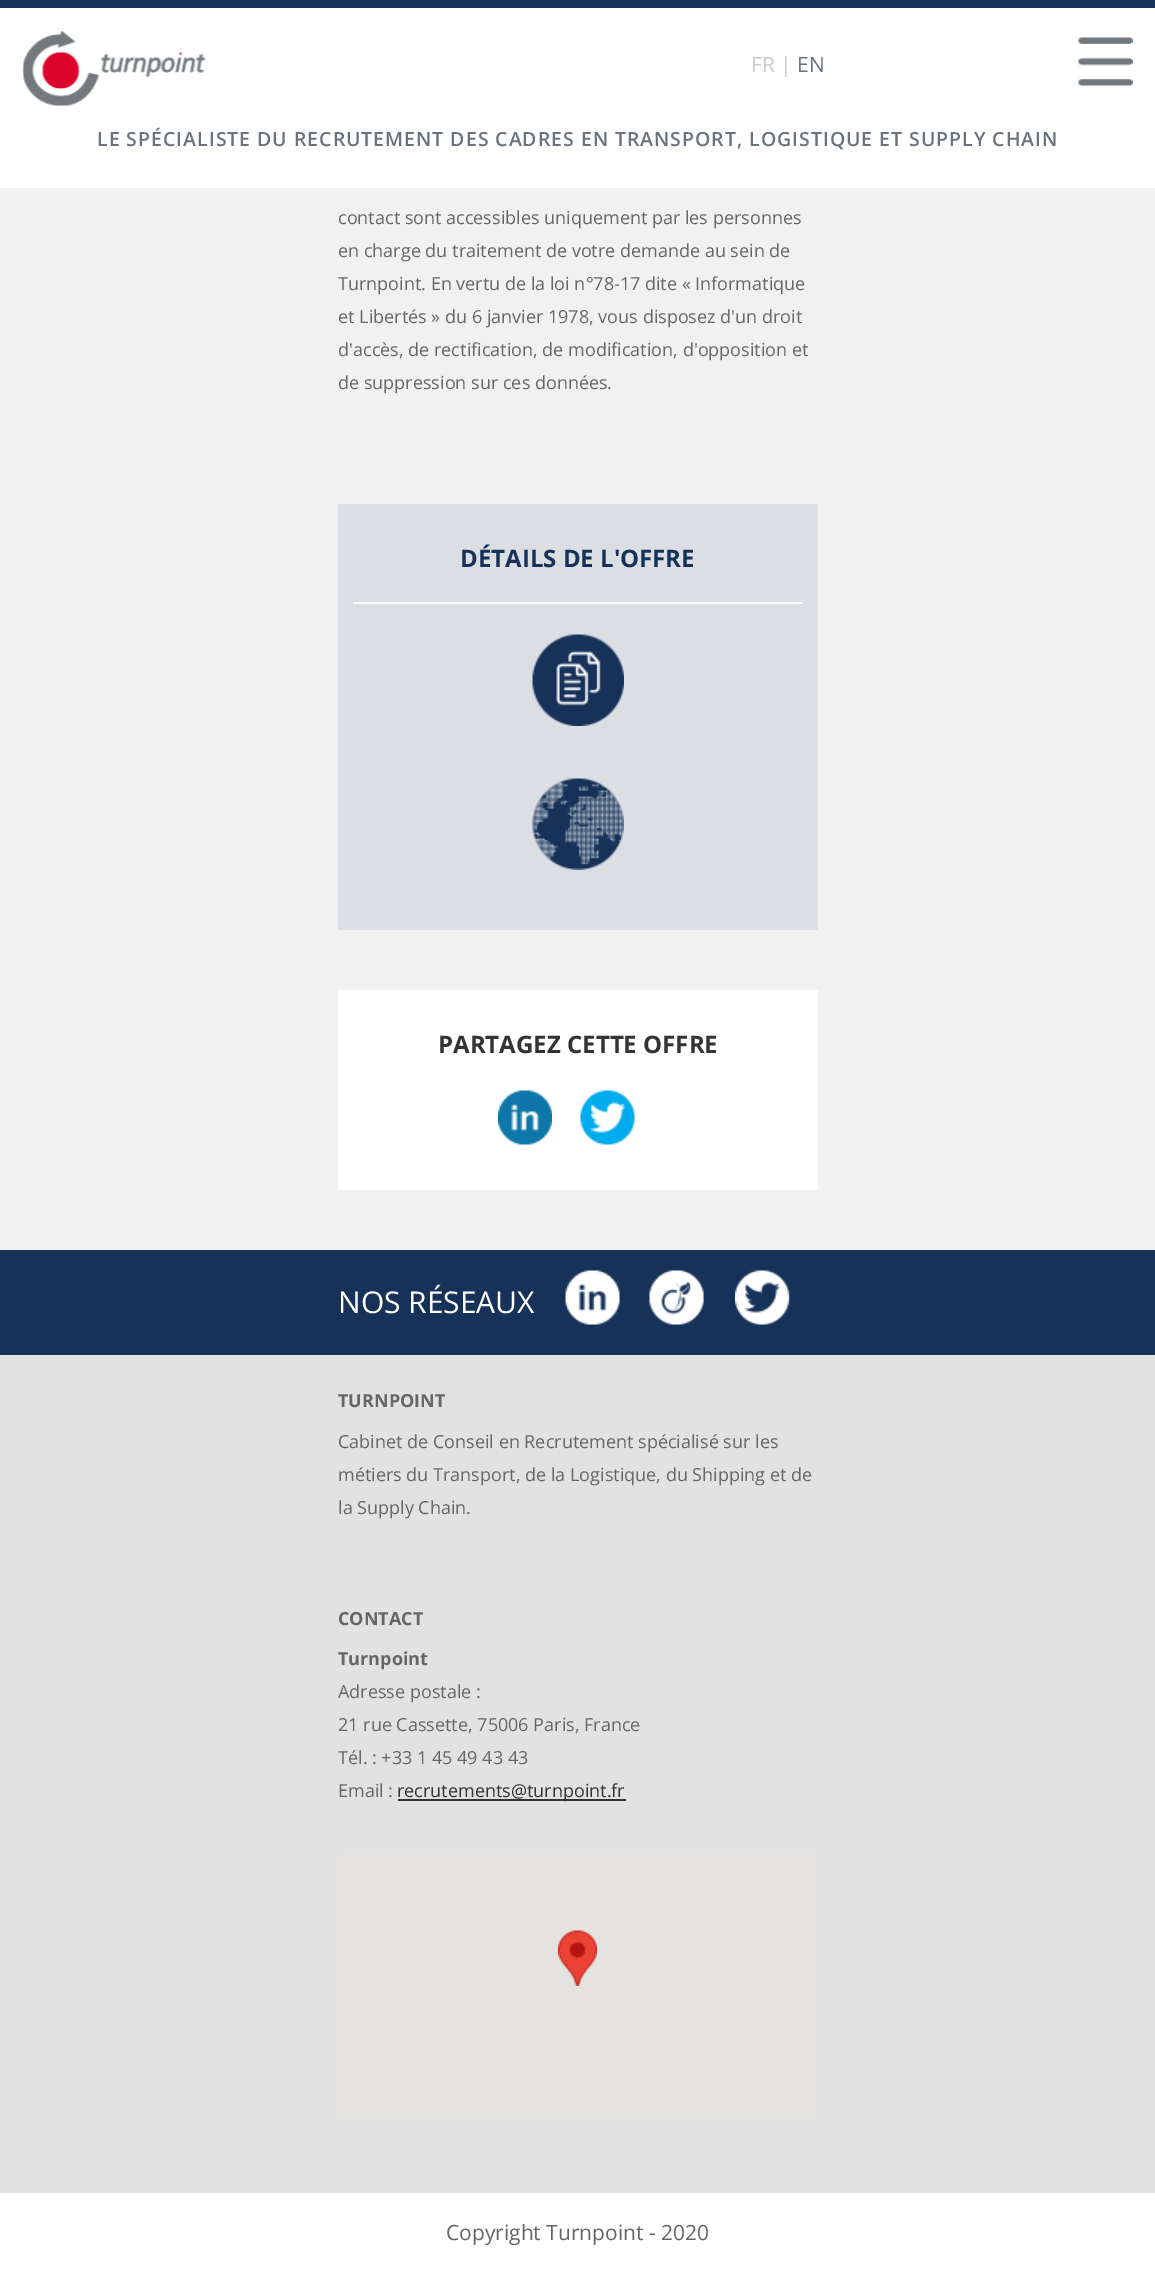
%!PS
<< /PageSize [1155 2271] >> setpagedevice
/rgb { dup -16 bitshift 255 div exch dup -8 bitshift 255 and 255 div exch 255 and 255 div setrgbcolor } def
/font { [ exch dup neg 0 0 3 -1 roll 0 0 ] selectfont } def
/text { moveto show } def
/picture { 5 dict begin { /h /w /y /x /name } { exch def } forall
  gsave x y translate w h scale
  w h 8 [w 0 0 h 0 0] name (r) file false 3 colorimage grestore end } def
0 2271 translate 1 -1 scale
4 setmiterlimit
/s1 { /OpenSans-Regular 21 font 16#CCCCCC rgb } def
/s2 { /OpenSans-Regular 21 font 16#6A737B rgb } def
/s3 { /OpenSans-Regular 18 font 16#666666 rgb } def
/s4 { /OpenSans-Bold 24 font 16#163259 rgb } def
/s5 { /OpenSans-Bold 24 font 16#333333 rgb } def
/s6 { /OpenSans-Regular 30 font 16#FFFFFF rgb } def
/s7 { /OpenSans-Bold 18 font 16#666666 rgb } def
/s8 { /OpenSans-Regular 18 font 16#333333 rgb } def
/s9 { /OpenSans-Regular 21 font 16#666666 rgb } def
16#F1F1F1 rgb
0 0 1155 2271 rectfill
16#FFFFFF rgb
0 8 1155 180 rectfill
16#163259 rgb
0 0 1155 8 rectfill
(pic1.raw) 23 31 183 75 picture
s1
(FR |) 751 72 text
s2
(EN) 797 72 text
(pic2.raw) 1078 37 55 49 picture
/OpenSans-SemiBold 19.5 font
97 146 moveto 0.98 0 (LE SPÉCIALISTE DU RECRUTEMENT DES CADRES EN TRANSPORT, LOGISTIQUE ET SUPPLY CHAIN) ashow
s3
(contact sont accessibles uniquement par les personnes) 338 224 text
(en charge du traitement de votre demande au sein de) 338 257 text
(Turnpoint. En vertu de la loi n°78-17 dite « Informatique) 338 290 text
(et Libertés » du 6 janvier 1978, vous disposez d'un droit) 338 323 text
(d'accès, de rectification, de modification, d'opposition et) 338 356 text
(de suppression sur ces données.) 338 389 text
16#DBDEE2 rgb
338 504 480 426 rectfill
s4
(DÉTAILS DE L'OFFRE) 460 567 text
16#FFFFFF rgb
353 602 450 2 rectfill
(pic3.raw) 532 634 92 92 picture
(pic4.raw) 532 778 92 92 picture
338 990 480 200 rectfill
s5
(PARTAGEZ CETTE OFFRE) 438 1053 text
(pic5.raw) 498 1090 54 55 picture
(pic6.raw) 580 1090 55 55 picture
16#163259 rgb
0 1250 1155 105 rectfill
s6
(NOS RÉSEAUX) 338 1313 text
(pic7.raw) 565 1270 55 55 picture
(pic8.raw) 649 1270 55 55 picture
(pic9.raw) 735 1270 55 55 picture
16#E2E2E2 rgb
0 1355 1155 838 rectfill
s7
(TURNPOINT) 338 1407 text
s3
(Cabinet de Conseil en Recrutement spécialisé sur les) 338 1448 text
(métiers du Transport, de la Logistique, du Shipping et de) 338 1481 text
(la Supply Chain.) 338 1514 text
s7
(CONTACT) 338 1625 text
(Turnpoint) 338 1665 text
s3
(Adresse postale :) 338 1698 text
(21 rue Cassette, 75006 Paris, France) 338 1731 text
(Tél. : +33 1 45 49 43 43) 338 1764 text
(Email :) 338 1797 text
16#333333 rgb
398 1799 228 2 rectfill
(recrutements@turnpoint.fr) 397 1797 text
16#E5E3DF rgb
338 1853 480 265 rectfill
(pic10.raw) 558 1930 39 56 picture
16#FFFFFF rgb
0 2193 1155 78 rectfill
s9
(Copyright Turnpoint - 2020) 446 2240 text
showpage
